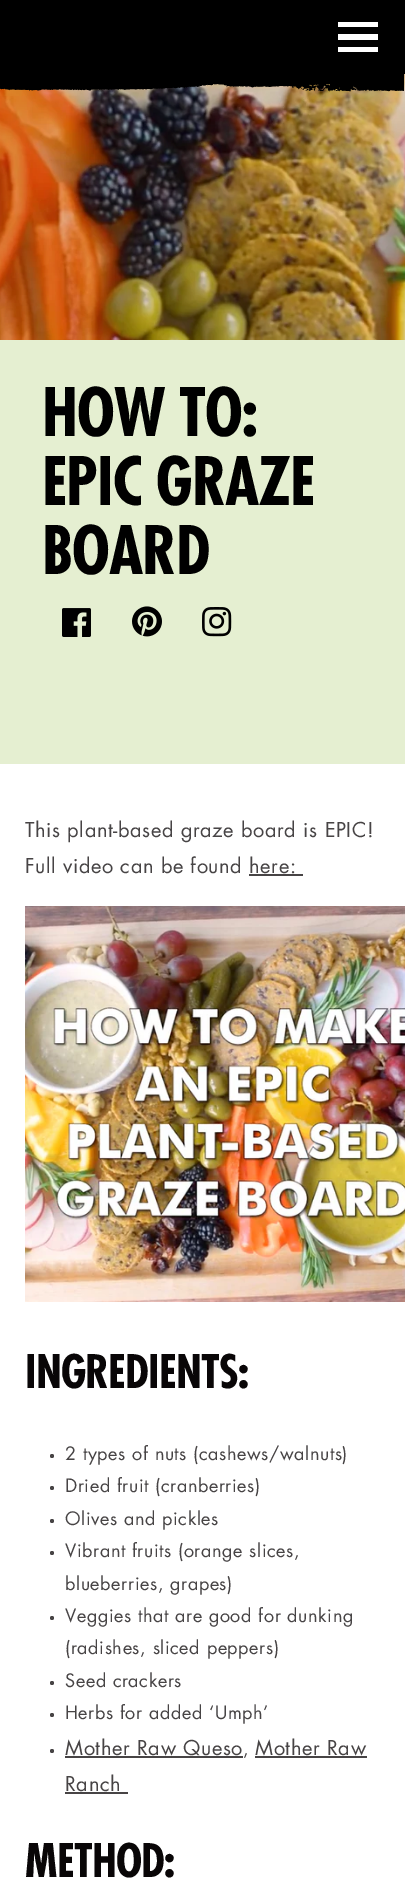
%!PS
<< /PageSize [405 1878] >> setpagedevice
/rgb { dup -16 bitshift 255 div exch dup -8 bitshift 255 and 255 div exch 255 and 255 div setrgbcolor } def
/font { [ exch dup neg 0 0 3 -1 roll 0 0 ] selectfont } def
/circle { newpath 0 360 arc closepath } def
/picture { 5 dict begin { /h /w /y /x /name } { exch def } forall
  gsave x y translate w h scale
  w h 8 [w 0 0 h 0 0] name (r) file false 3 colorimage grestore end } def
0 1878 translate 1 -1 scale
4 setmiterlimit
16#FFFFFF rgb
0 0 405 1878 rectfill
16#000000 rgb
0 0 405 74 rectfill
16#FFFFFF rgb
378 52 moveto 338 52 lineto 338 47 lineto 378 47 lineto closepath 378 40 moveto 338 40 lineto 338 34 lineto 378 34 lineto closepath 378 27 moveto 338 27 lineto 338 22 lineto 378 22 lineto closepath fill
(pic2.raw) 0 74 405 266 picture
(pic1.raw) 0 74 404 18 picture
16#E5EFD1 rgb
0 340 405 424 rectfill
/Futura-Bold 65 font
16#000000 rgb
42 436 moveto -1 0 (HOW TO:) ashow
42 505 moveto -1 0 (EPIC GRAZE) ashow
42 574 moveto -1 0 (BOARD) ashow
(pic3.raw) 62 608 29 29 picture
(pic4.raw) 132 606 30 31 picture
(pic5.raw) 202 607 30 30 picture
/Futura-Regular 20 font
16#474445 rgb
25 837 moveto 0.6 0 (This plant-based graze board is EPIC!) ashow
25 873 moveto 0.6 0 (Full video can be found here:) ashow
249 874 54 2 rectfill
(pic6.raw) 25 906 380 396 picture
/Futura-Bold 45 font
16#090607 rgb
25 1388 moveto -0.75 0 (INGREDIENTS:) ashow
16#474445 rgb
52 1456 2 circle fill
/Futura-Regular 18 font
65 1460 moveto 0.6 0 (2 types of nuts \(cashews/walnuts\)) ashow
52 1488 2 circle fill
65 1492 moveto 0.6 0 (Dried fruit \(cranberries\)) ashow
52 1521 2 circle fill
65 1525 moveto 0.6 0 (Olives and pickles) ashow
52 1553 2 circle fill
65 1557 moveto 0.6 0 (Vibrant fruits \(orange slices,) ashow
65 1590 moveto 0.6 0 (blueberries, grapes\)) ashow
52 1618 2 circle fill
65 1622 moveto 0.6 0 (Veggies that are good for dunking) ashow
65 1654 moveto 0.6 0 (\(radishes, sliced peppers\)) ashow
52 1683 2 circle fill
65 1687 moveto 0.6 0 (Seed crackers) ashow
52 1715 2 circle fill
65 1719 moveto 0.6 0 (Herbs for added ‘Umph’) ashow
52 1751 2 circle fill
/Futura-Regular 20 font
65 1755 moveto 0.6 0 (Mother Raw Queso) ashow
65 1756 178 2 rectfill
255 1755 moveto 0.6 0 (Mother Raw) ashow
255 1756 112 2 rectfill
/Futura-Regular 18 font
243 1755 moveto 0.6 0 (,) ashow
/Futura-Regular 20 font
65 1791 moveto 0.6 0 (Ranch) ashow
65 1792 63 2 rectfill
/Futura-Bold 45 font
16#090607 rgb
25 1877 moveto -0.75 0 (METHOD:) ashow
showpage
